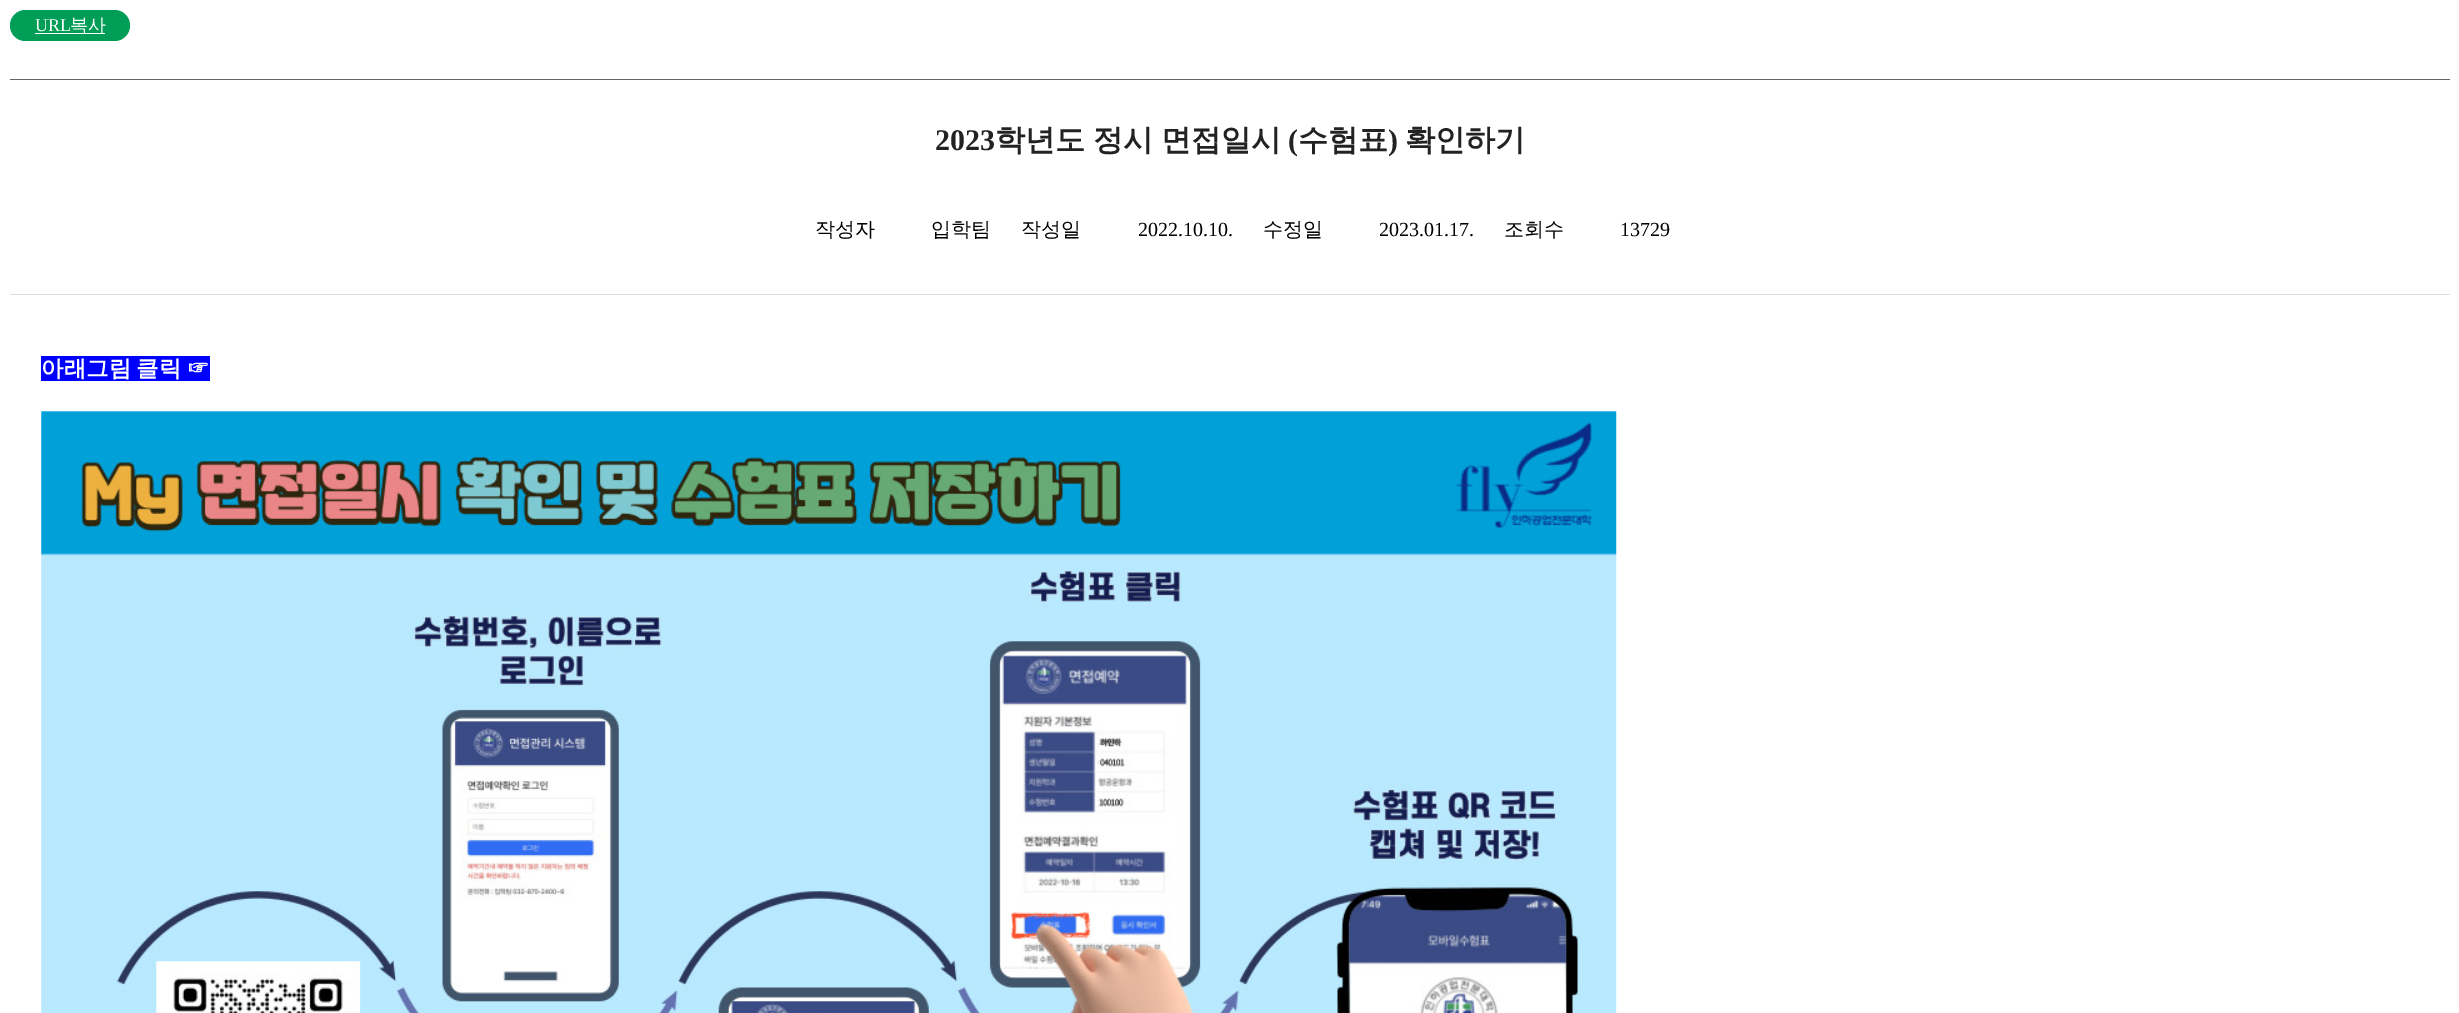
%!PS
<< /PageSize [2459 1013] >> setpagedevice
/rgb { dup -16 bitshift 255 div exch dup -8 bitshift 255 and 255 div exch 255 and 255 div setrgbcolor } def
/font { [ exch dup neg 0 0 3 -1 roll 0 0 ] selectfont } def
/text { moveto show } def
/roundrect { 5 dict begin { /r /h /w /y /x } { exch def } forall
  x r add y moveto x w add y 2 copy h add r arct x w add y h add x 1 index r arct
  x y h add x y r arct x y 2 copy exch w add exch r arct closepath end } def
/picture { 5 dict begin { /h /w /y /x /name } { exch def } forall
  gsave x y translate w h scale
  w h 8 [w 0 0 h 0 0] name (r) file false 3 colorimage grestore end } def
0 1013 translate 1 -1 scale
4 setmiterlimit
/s1 { /LiberationSerif-Regular 18 font 16#FFFFFF rgb } def
/s2 { /WenQuanYiZenHei-Medium 18 font 16#FFFFFF rgb } def
/s3 { /LiberationSerif-Bold 30 font 16#222222 rgb } def
/s4 { /WenQuanYiZenHei-Bold 30 font 16#222222 rgb } def
/s5 { /WenQuanYiZenHei-Medium 20 font 16#000000 rgb } def
/s6 { /LiberationSerif-Regular 20 font 16#000000 rgb } def
/s7 { /WenQuanYiZenHei-Bold 22.5 font 16#FFFFFF rgb } def
16#FFFFFF rgb
0 0 2459 1013 rectfill
16#DDDDDD rgb
10 294 2440 1 rectfill
16#009D56 rgb
10 10 120 31 15.5 roundrect fill
s1
(URL) 35 31 text
35 33 70 1 rectfill
s2
(복사) 70 31 text
16#666666 rgb
10 79 2440 1 rectfill
s3
(2023) 935 150 text
/WenQuanYiZenHei-Bold 30 font
995 150 moveto -1 0 32 (학년도 정시 면접일시) widthshow
s3
(\() 1288 150 text
s4
(수험표) 1298 150 text
s3
(\)) 1388 150 text
s4
(확인하기) 1405 150 text
s5
(작성자) 815 236 text
(입학팀) 931 236 text
(작성일) 1021 236 text
s6
(2022.10.10.) 1138 236 text
s5
(수정일) 1263 236 text
s6
(2023.01.17.) 1379 236 text
s5
(조회수) 1504 236 text
s6
(13729) 1620 236 text
16#0000FF rgb
41 356 169 25 rectfill
s7
(아래그림) 41 376 text
136 376 moveto -1 0 32 (클릭 ☞) widthshow
(pic1.raw) 41 411 1576 602 picture
showpage
